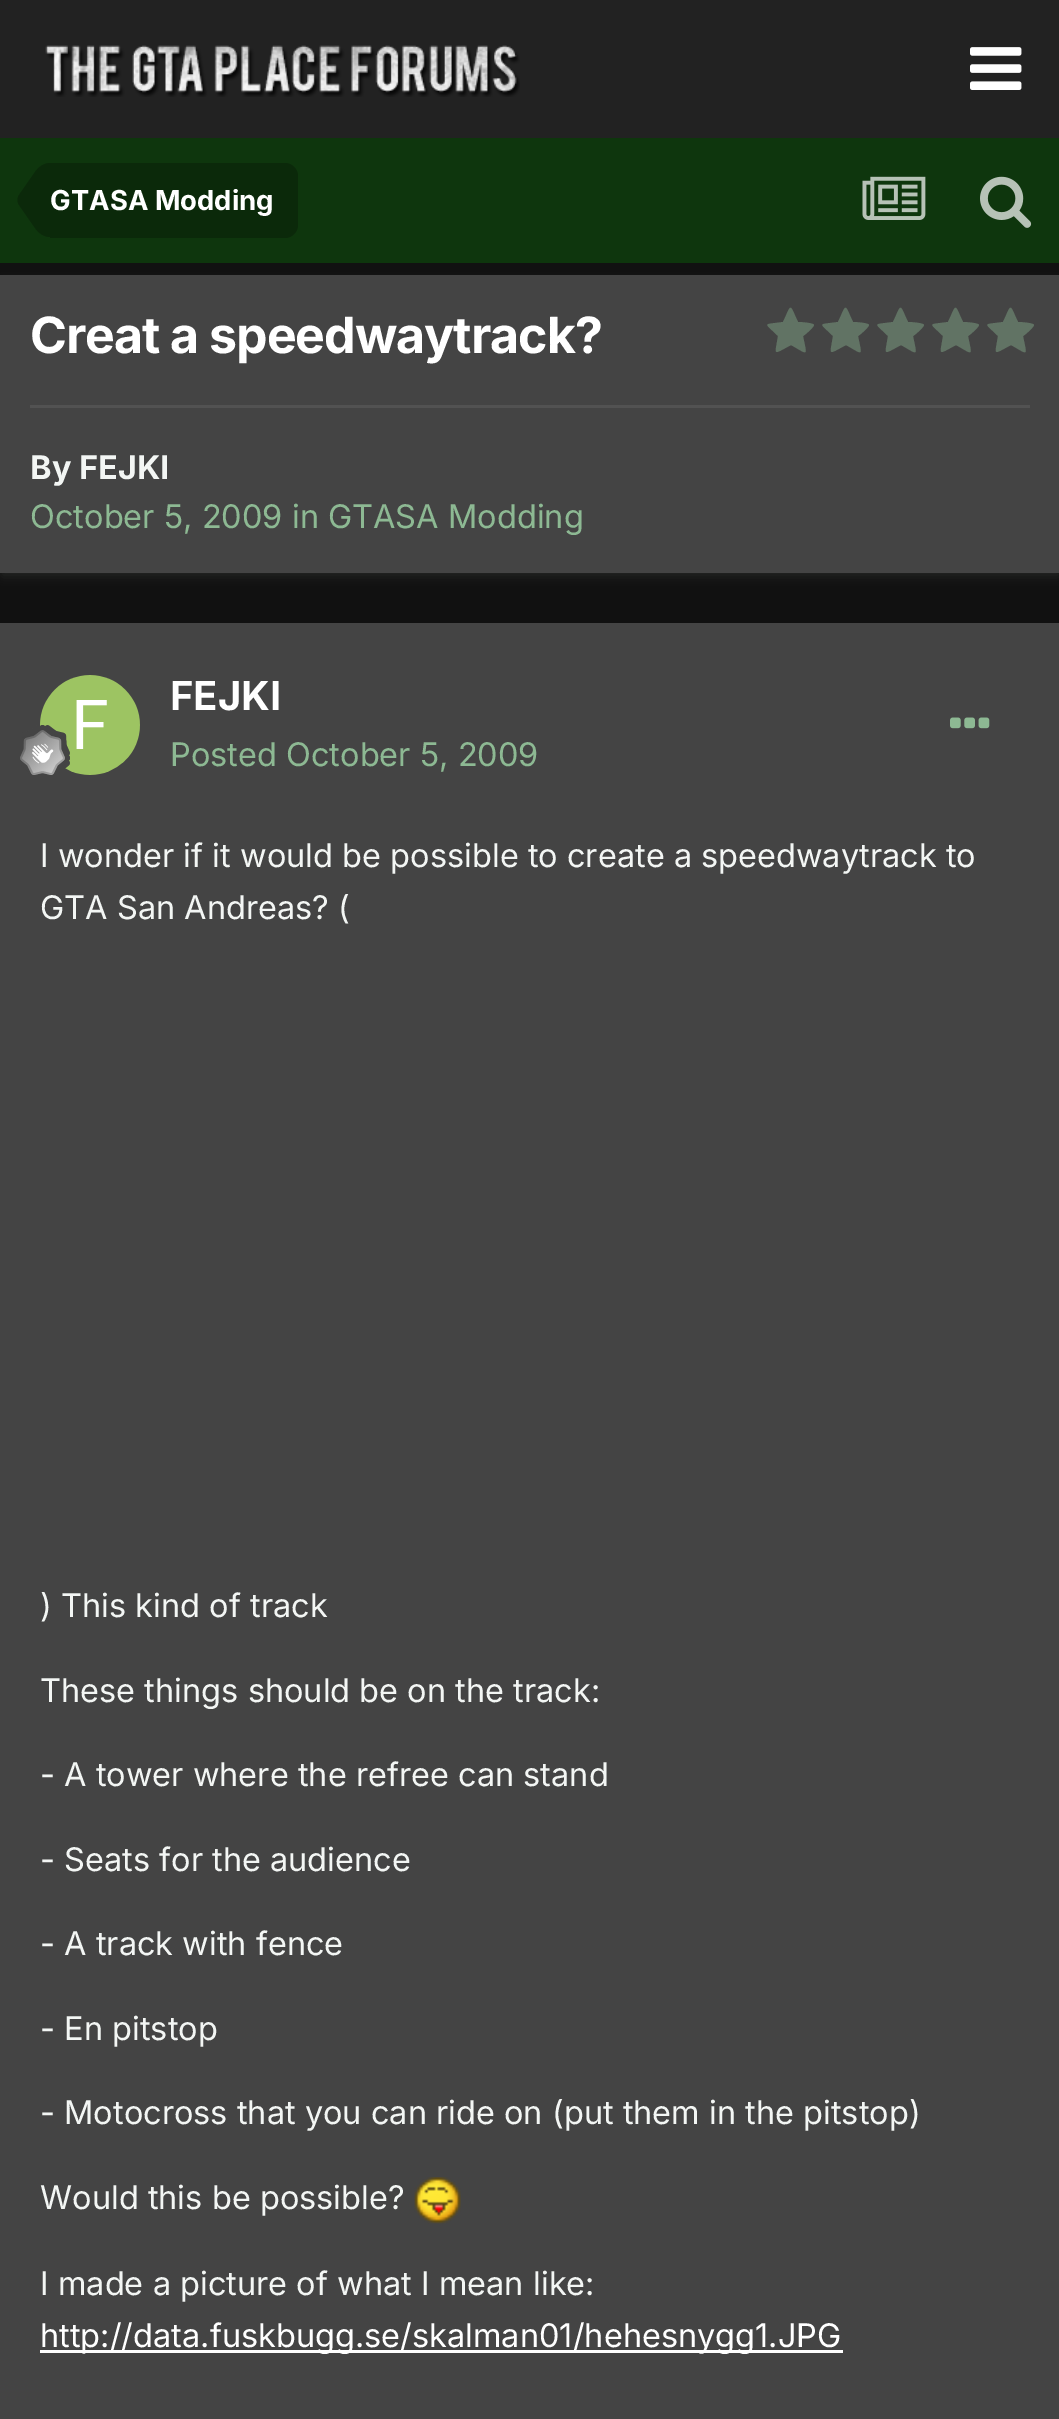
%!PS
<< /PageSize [1059 2419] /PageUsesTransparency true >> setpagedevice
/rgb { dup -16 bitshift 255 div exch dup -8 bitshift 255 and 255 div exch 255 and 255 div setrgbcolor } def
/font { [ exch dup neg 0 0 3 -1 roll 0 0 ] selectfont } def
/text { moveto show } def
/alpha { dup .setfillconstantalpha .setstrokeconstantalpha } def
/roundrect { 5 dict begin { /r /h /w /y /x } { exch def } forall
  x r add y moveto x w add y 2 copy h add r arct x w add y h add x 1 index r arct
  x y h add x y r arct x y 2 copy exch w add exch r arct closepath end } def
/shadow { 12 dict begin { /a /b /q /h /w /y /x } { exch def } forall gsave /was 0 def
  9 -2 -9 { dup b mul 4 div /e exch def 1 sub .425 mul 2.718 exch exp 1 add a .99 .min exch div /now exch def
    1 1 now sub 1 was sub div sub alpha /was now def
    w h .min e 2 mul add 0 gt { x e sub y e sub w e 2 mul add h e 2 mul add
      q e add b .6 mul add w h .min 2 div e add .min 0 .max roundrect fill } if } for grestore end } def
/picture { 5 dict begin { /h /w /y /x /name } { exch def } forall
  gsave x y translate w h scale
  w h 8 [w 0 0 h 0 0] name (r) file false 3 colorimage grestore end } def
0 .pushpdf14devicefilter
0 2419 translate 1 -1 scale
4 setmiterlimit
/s1 { /Inter-Bold 27.5 font 16#FFFFFF rgb } def
/s2 { /Inter-Bold 32.5 font 16#F3F6F4 rgb } def
/s3 { /Inter-Regular 32.5 font 16#8DB993 rgb } def
/s4 { /Inter-Bold 40 font 16#FFFFFF rgb } def
/s5 { /Inter-Regular 32.5 font 16#F3F6F4 rgb } def
/s6 { /Inter-Regular 32.5 font 16#FFFFFF rgb } def
16#111111 rgb
0 0 1059 2419 rectfill
16#222222 rgb
0 0 1059 138 rectfill
(pic1.raw) 45 45 475 52 picture
(pic2.raw) 970 47 52 43 picture
16#0E360D rgb
0 138 1059 125 rectfill
16#0B290A rgb
50 163 moveto 285 163 lineto 292 163 298 169 298 176 curveto 298 225 lineto 298 232 292 238 285 238 curveto 50 238 lineto closepath fill
50 200 moveto 50 237 lineto 44.5 237 39 234 35 228 curveto 19 205 lineto 18 203.5 17.5 202 17.5 200 curveto closepath fill
50 200 moveto 17.5 200 lineto 17.5 198 18 196.5 19 195 curveto 35 172 lineto 39 166 44.5 163 50 163 curveto closepath fill
s1
(GTASA Modding) 50 210 text
(pic3.raw) 862 176 64 44 picture
(pic4.raw) 980 176 52 52 picture
16#EDF7EF rgb
3 283 1055 292 0 5 0.1 shadow
16#444444 rgb
0 275 1059 298 rectfill
/Inter-Bold 50 font
16#FFFFFF rgb
30 353 moveto -1 0 (Creat a speedwaytrack?) ashow
16#617364 rgb
814 325 moveto 814 327 805 335 803 336 curveto 807 357 809 355 791 345 curveto 772 355 775 356 778 336 curveto 764 322 762 325 783 322 curveto 792 303 789 303 798 322 curveto 801 322 814 323 814 325 curveto closepath fill
869 325 moveto 869 327 860 335 858 336 curveto 862 357 864 355 846 345 curveto 827 355 830 356 833 336 curveto 819 322 817 325 838 322 curveto 847 303 844 303 853 322 curveto 856 322 869 323 869 325 curveto closepath fill
924 325 moveto 924 327 915 335 913 336 curveto 917 357 919 355 901 345 curveto 882 355 885 356 888 336 curveto 874 322 872 325 893 322 curveto 902 303 899 303 908 322 curveto 911 322 924 323 924 325 curveto closepath fill
979 325 moveto 979 327 970 335 968 336 curveto 972 357 974 355 956 345 curveto 937 355 940 356 943 336 curveto 929 322 927 325 948 322 curveto 957 303 954 303 963 322 curveto 966 322 979 323 979 325 curveto closepath fill
1034 325 moveto 1034 327 1025 335 1023 336 curveto 1027 357 1029 355 1011 345 curveto 992 355 995 356 998 336 curveto 984 322 982 325 1003 322 curveto 1012 303 1009 303 1018 322 curveto 1021 322 1034 323 1034 325 curveto closepath fill
16#525252 rgb
30 405 1000 3 rectfill
s2
(By FEJKI) 30 479 text
s3
(October 5, 2009 in GTASA Modding) 30 528 text
16#444444 rgb
0 623 1059 1796 rectfill
(pic5.raw) 40 675 100 100 picture
(pic6.raw) 20 725 50 50 picture
s4
(FEJKI) 170 710 text
s3
(Posted October 5, 2009) 170 766 text
(pic7.raw) 950 717 40 12 picture
s5
(I wonder if it would be possible to create a speedwaytrack to) 40 867 text
(GTA San Andreas? \() 40 919 text
(\) This kind of track) 40 1617 text
(These things should be on the track:) 40 1702 text
(- A tower where the refree can stand) 40 1786 text
(- Seats for the audience) 40 1871 text
(- A track with fence) 40 1955 text
(- En pitstop) 40 2040 text
(- Motocross that you can ride on \(put them in the pitstop\)) 40 2124 text
(Would this be possible?) 40 2209 text
(pic8.raw) 414 2177 47 47 picture
(I made a picture of what I mean like:) 40 2295 text
16#FFFFFF rgb
40 2350 803 3 rectfill
(http://data.fuskbugg.se/skalman01/hehesnygg1.JPG) 40 2347 text
.poppdf14devicefilter showpage
